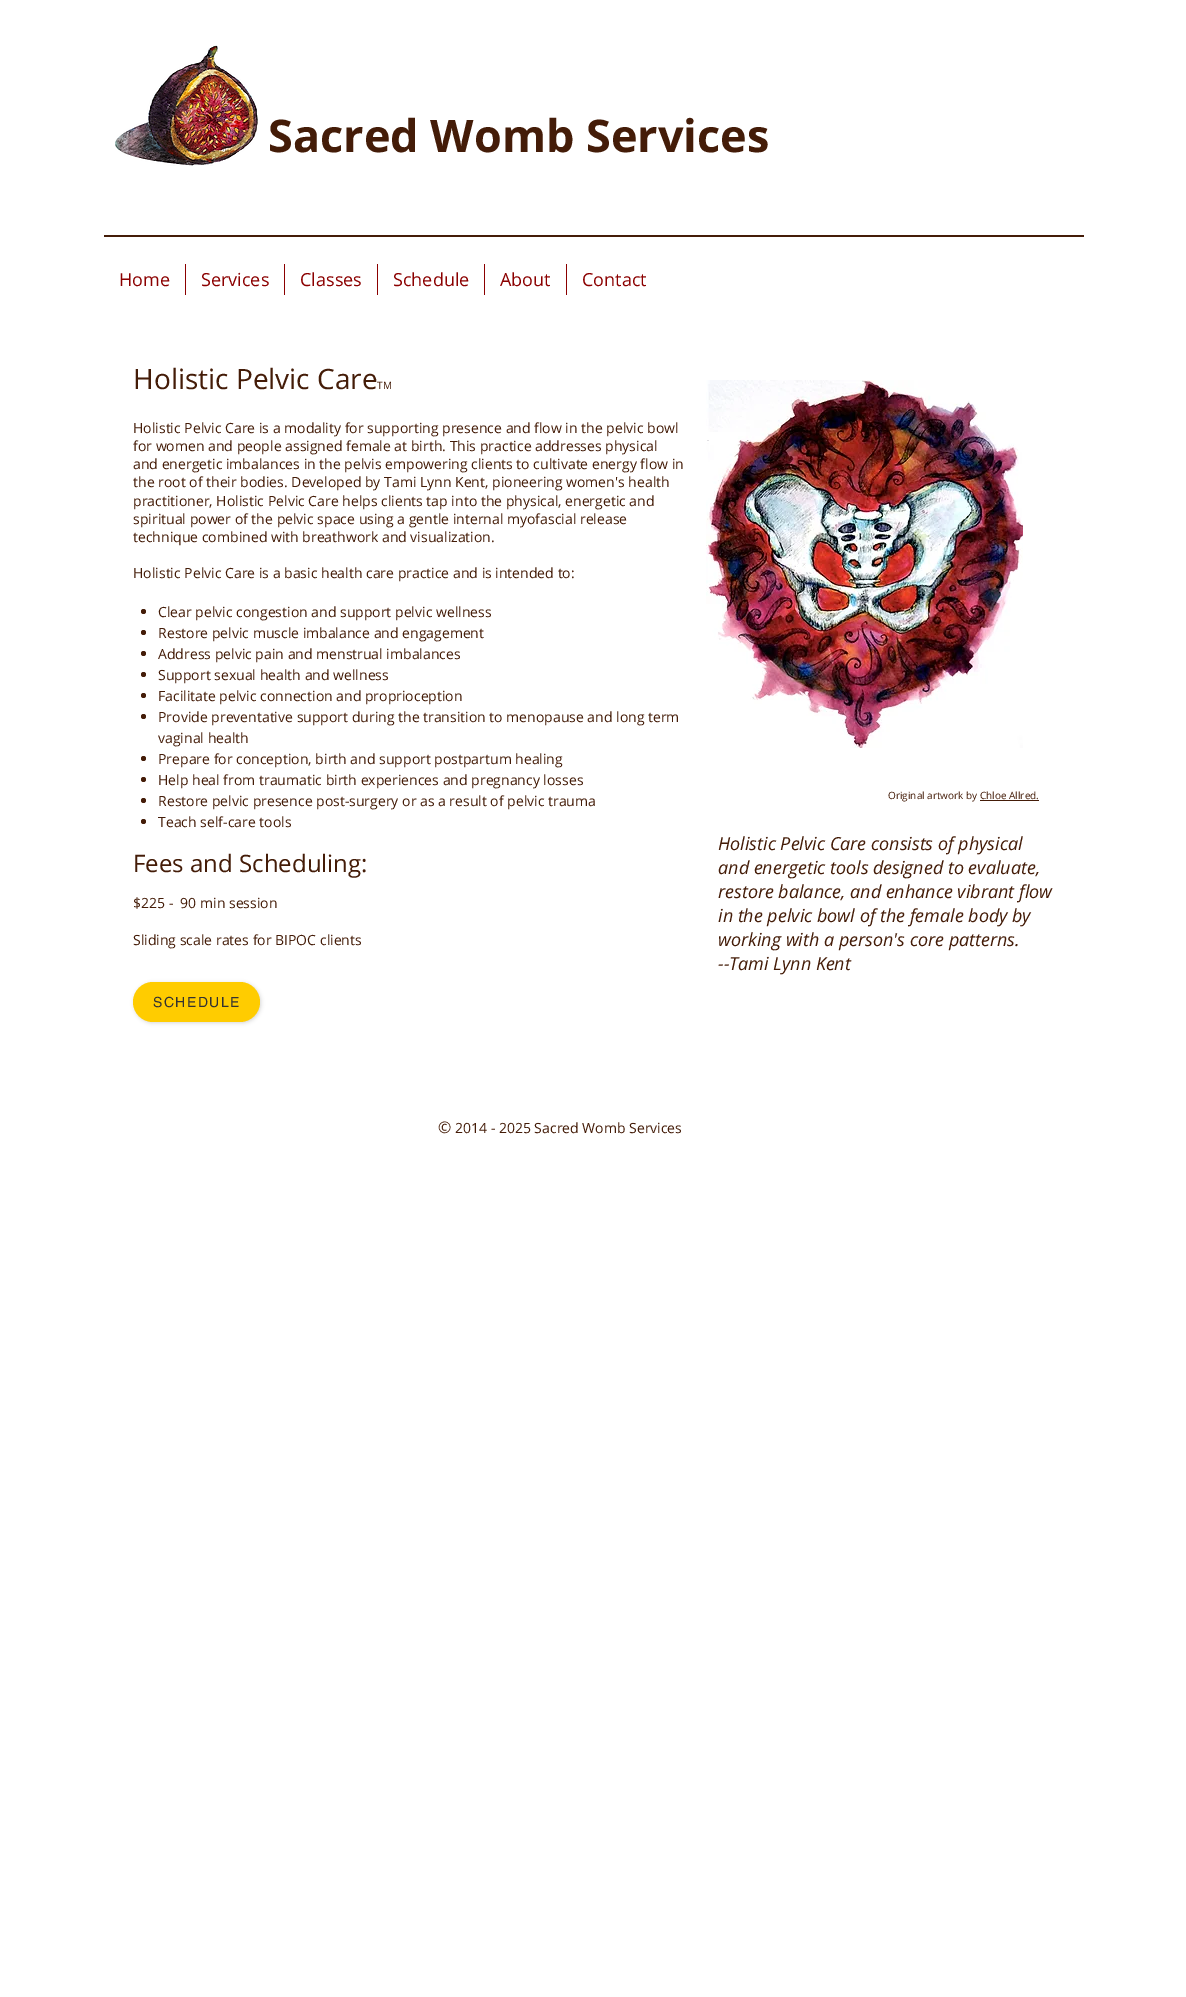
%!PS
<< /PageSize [1186 1997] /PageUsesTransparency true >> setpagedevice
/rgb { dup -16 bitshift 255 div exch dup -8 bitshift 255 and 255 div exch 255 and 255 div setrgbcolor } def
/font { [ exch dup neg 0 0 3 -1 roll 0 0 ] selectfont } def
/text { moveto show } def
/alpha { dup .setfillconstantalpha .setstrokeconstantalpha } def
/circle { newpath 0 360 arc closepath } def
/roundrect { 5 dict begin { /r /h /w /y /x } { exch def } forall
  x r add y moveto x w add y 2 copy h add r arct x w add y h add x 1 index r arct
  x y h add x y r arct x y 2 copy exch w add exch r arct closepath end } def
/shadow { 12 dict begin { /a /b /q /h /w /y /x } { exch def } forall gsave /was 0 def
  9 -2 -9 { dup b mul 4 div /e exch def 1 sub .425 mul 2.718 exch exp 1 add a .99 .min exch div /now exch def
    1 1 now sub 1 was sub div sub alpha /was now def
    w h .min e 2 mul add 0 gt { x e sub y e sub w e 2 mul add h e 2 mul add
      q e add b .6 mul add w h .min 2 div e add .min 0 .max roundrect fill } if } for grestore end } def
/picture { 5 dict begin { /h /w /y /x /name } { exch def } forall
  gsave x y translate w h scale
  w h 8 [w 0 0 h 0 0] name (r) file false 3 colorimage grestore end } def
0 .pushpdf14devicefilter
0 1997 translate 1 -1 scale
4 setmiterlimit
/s1 { /OpenSans-Bold 45 font 16#441C08 rgb } def
/s2 { /OpenSans-Regular 18 font 16#8B0000 rgb } def
/s3 { /OpenSans-Regular 28 font 16#441C08 rgb } def
/s4 { /OpenSans-Regular 10 font 16#441C08 rgb } def
/s5 { /OpenSans-Regular 14 font 16#441C08 rgb } def
/s6 { /OpenSans-Regular 24 font 16#441C08 rgb } def
/s7 { /OpenSans-Italic 18 font 16#441C08 rgb } def
/s8 { /OpenSans-Regular 16 font 16#441C08 rgb } def
16#FFFFFF rgb
0 0 1186 1997 rectfill
(pic1.raw) 115 45 143 121 picture
s1
(Sacred Womb Services) 268 152 text
104 235 980 2 rectfill
s2
(Home) 119 286 text
185 264 1 31 rectfill
(Services) 201 286 text
284 264 1 31 rectfill
(Classes) 300 286 text
377 264 1 31 rectfill
(Schedule) 393 286 text
484 264 1 31 rectfill
(About) 500 286 text
566 264 1 31 rectfill
(Contact) 582 286 text
s3
(Holistic Pelvic Care) 133 389 text
s4
(TM) 377 389 text
s5
(Holistic Pelvic Care is a modality for supporting presence and flow in the pelvic bowl) 133 433 text
(for women and people assigned female at birth. This practice addresses physical) 133 451 text
(and energetic imbalances in the pelvis empowering clients to cultivate energy flow in) 133 469 text
(the root of their bodies. Developed by Tami Lynn Kent, pioneering women's health) 133 487 text
(practitioner, Holistic Pelvic Care helps clients tap into the physical, energetic and) 133 506 text
(spiritual power of the pelvic space using a gentle internal myofascial release) 133 524 text
(technique combined with breathwork and visualization.) 133 542 text
(Holistic Pelvic Care is a basic health care practice and is intended to:) 133 578 text
143.5 611.5 2.5 circle fill
(Clear pelvic congestion and support pelvic wellness) 158 617 text
143.5 632.5 2.5 circle fill
(Restore pelvic muscle imbalance and engagement) 158 638 text
143.5 653.5 2.5 circle fill
(Address pelvic pain and menstrual imbalances) 158 659 text
143.5 674.5 2.5 circle fill
(Support sexual health and wellness) 158 680 text
143.5 695.5 2.5 circle fill
(Facilitate pelvic connection and proprioception) 158 701 text
143.5 716.5 2.5 circle fill
(Provide preventative support during the transition to menopause and long term) 158 722 text
(vaginal health) 158 743 text
143.5 758.5 2.5 circle fill
(Prepare for conception, birth and support postpartum healing) 158 764 text
143.5 779.5 2.5 circle fill
(Help heal from traumatic birth experiences and pregnancy losses) 158 785 text
143.5 800.5 2.5 circle fill
(Restore pelvic presence post-surgery or as a result of pelvic trauma) 158 806 text
143.5 821.5 2.5 circle fill
(Teach self-care tools) 158 827 text
s6
(Fees and Scheduling:) 133 872 text
s5
($225 -  90 min session) 133 908 text
(Sliding scale rates for BIPOC clients) 133 945 text
(pic2.raw) 706 380 317 368 picture
s4
(Original artwork by Chloe Allred.) 888 799 text
980 800 59 1 rectfill
s7
(Holistic Pelvic Care consists of physical) 718 850 text
(and energetic tools designed to evaluate,) 718 874 text
(restore balance, and enhance vibrant flow) 718 898 text
(in the pelvic bowl of the female body by) 718 922 text
(working with a person's core patterns.) 718 946 text
(--Tami Lynn Kent) 718 970 text
16#000000 rgb
134 983 127 40 20 2 0.15 shadow
16#FFCC00 rgb
133 982 127 40 20 roundrect fill
/helvetica-Regular 14 font
16#323232 rgb
153 1007 moveto 1.5 0 (SCHEDULE) ashow
s8
(©) 438 1133 text
s5
(2014 - 2025 Sacred Womb Services) 455 1133 text
.poppdf14devicefilter showpage
